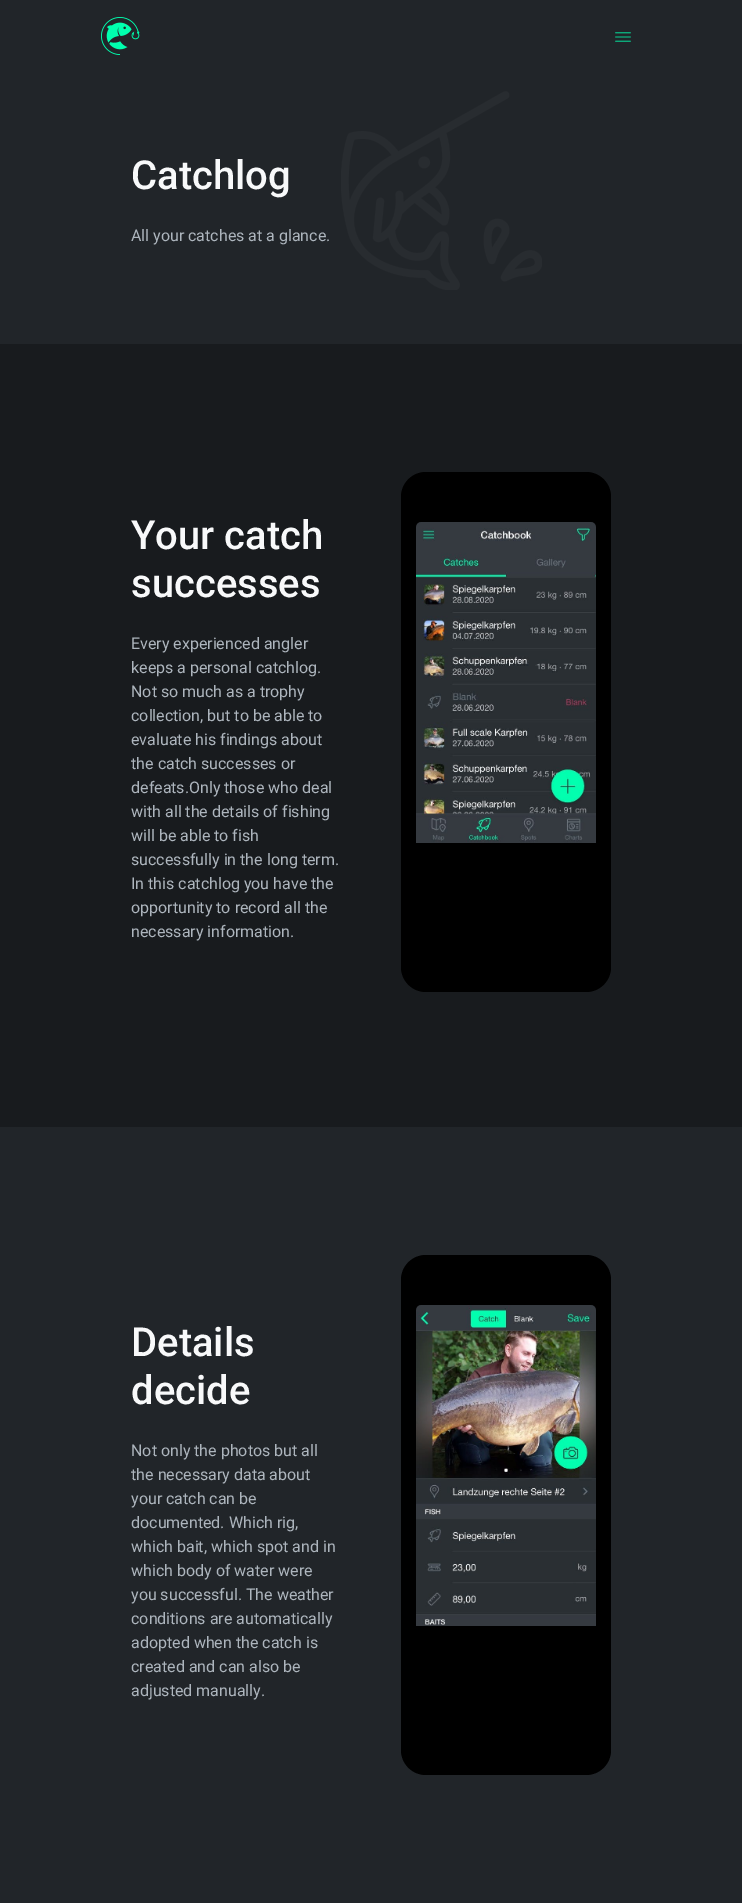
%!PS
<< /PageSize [742 1903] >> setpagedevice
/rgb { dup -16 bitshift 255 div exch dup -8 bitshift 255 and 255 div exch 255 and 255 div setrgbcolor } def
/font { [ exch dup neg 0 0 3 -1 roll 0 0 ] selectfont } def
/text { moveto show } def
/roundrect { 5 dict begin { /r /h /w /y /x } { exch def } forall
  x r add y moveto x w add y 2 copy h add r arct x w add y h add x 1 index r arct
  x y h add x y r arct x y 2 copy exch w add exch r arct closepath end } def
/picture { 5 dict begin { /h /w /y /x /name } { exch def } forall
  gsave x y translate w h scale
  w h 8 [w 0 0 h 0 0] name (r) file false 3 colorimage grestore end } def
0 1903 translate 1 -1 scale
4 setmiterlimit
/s1 { /Roboto-Medium 40 font 16#F8F9FA rgb } def
/s2 { /Roboto-Regular 16 font 16#ADB5BD rgb } def
16#181B1E rgb
0 0 742 1903 rectfill
16#212529 rgb
0 0 742 344 rectfill
(pic1.raw) 101 17 39 38 picture
(pic2.raw) 615 32 16 10 picture
s1
(Catchlog) 131 189 text
(pic3.raw) 341 91 201 199 picture
s2
(All your catches at a glance.) 131 241 text
s1
(Your catch) 131 549 text
(successes) 131 597 text
s2
(Every experienced angler) 131 649 text
(keeps a personal catchlog.) 131 673 text
(Not so much as a trophy) 131 697 text
(collection, but to be able to) 131 721 text
(evaluate his findings about) 131 745 text
(the catch successes or) 131 769 text
(defeats.Only those who deal) 131 793 text
(with all the details of fishing) 131 817 text
(will be able to fish) 131 841 text
(successfully in the long term.) 131 865 text
(In this catchlog you have the) 131 889 text
(opportunity to record all the) 131 913 text
(necessary information.) 131 937 text
16#000000 rgb
401 472 210 520 25 roundrect fill
(pic4.raw) 416 522 180 321 picture
16#212529 rgb
0 1127 742 776 rectfill
s1
(Details) 131 1356 text
(decide) 131 1404 text
s2
(Not only the photos but all) 131 1456 text
(the necessary data about) 131 1480 text
(your catch can be) 131 1504 text
(documented. Which rig,) 131 1528 text
(which bait, which spot and in) 131 1552 text
(which body of water were) 131 1576 text
(you successful. The weather) 131 1600 text
(conditions are automatically) 131 1624 text
(adopted when the catch is) 131 1648 text
(created and can also be) 131 1672 text
(adjusted manually.) 131 1696 text
16#000000 rgb
401 1255 210 520 25 roundrect fill
(pic5.raw) 416 1305 180 321 picture
showpage
